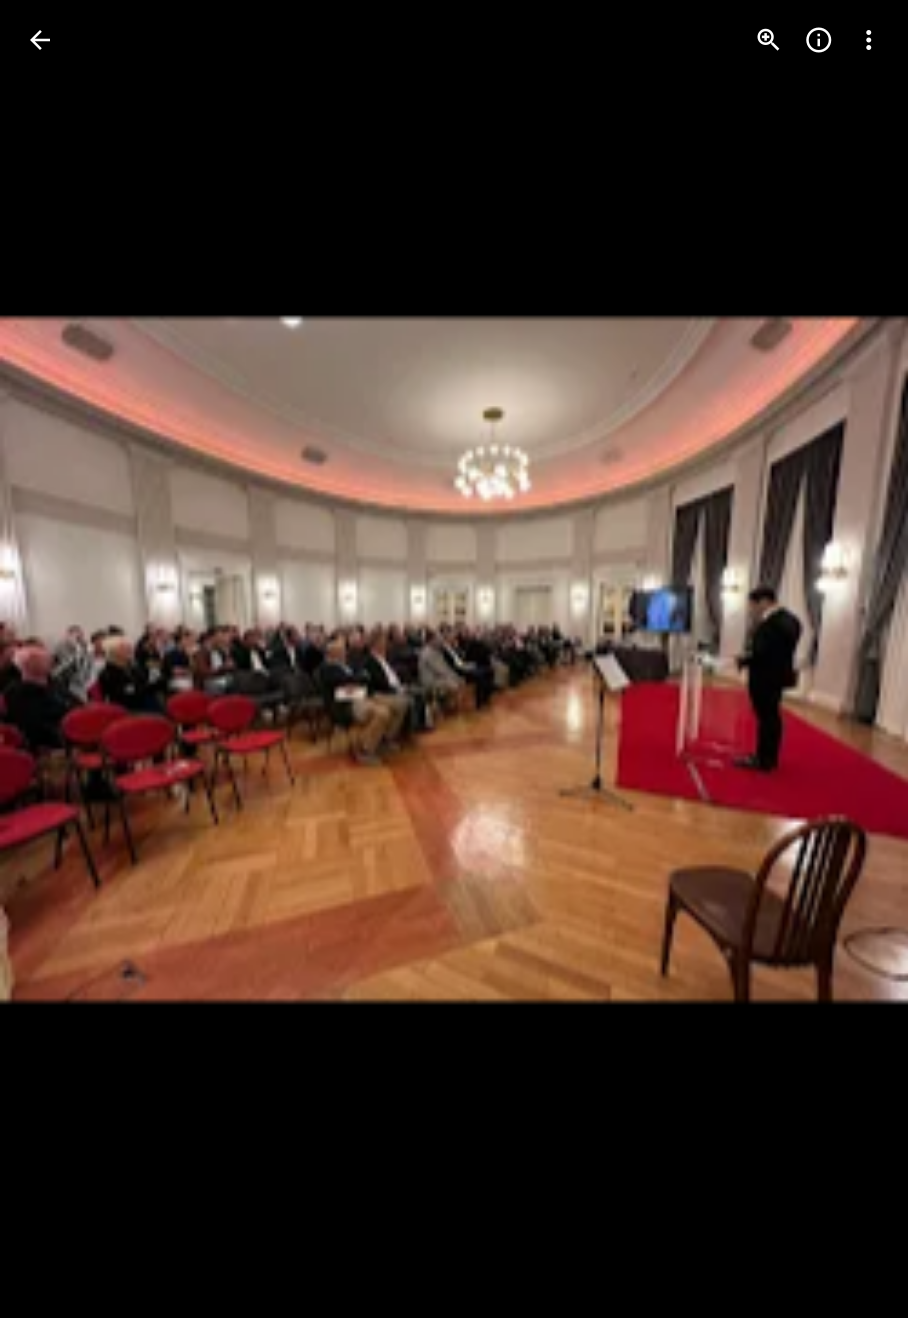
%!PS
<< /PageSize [908 1318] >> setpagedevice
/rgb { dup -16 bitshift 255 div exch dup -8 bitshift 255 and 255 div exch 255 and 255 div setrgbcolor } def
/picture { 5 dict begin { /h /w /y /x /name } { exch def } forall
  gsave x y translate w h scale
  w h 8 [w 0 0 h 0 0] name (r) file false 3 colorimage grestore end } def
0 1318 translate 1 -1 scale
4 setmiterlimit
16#000000 rgb
0 0 908 1318 rectfill
(pic1.raw) 30 30 20 20 picture
(pic2.raw) 757 28 23 23 picture
(pic3.raw) 806 27 26 26 picture
(pic4.raw) 866 30 6 20 picture
(pic5.raw) 0 315 908 690 picture
showpage
